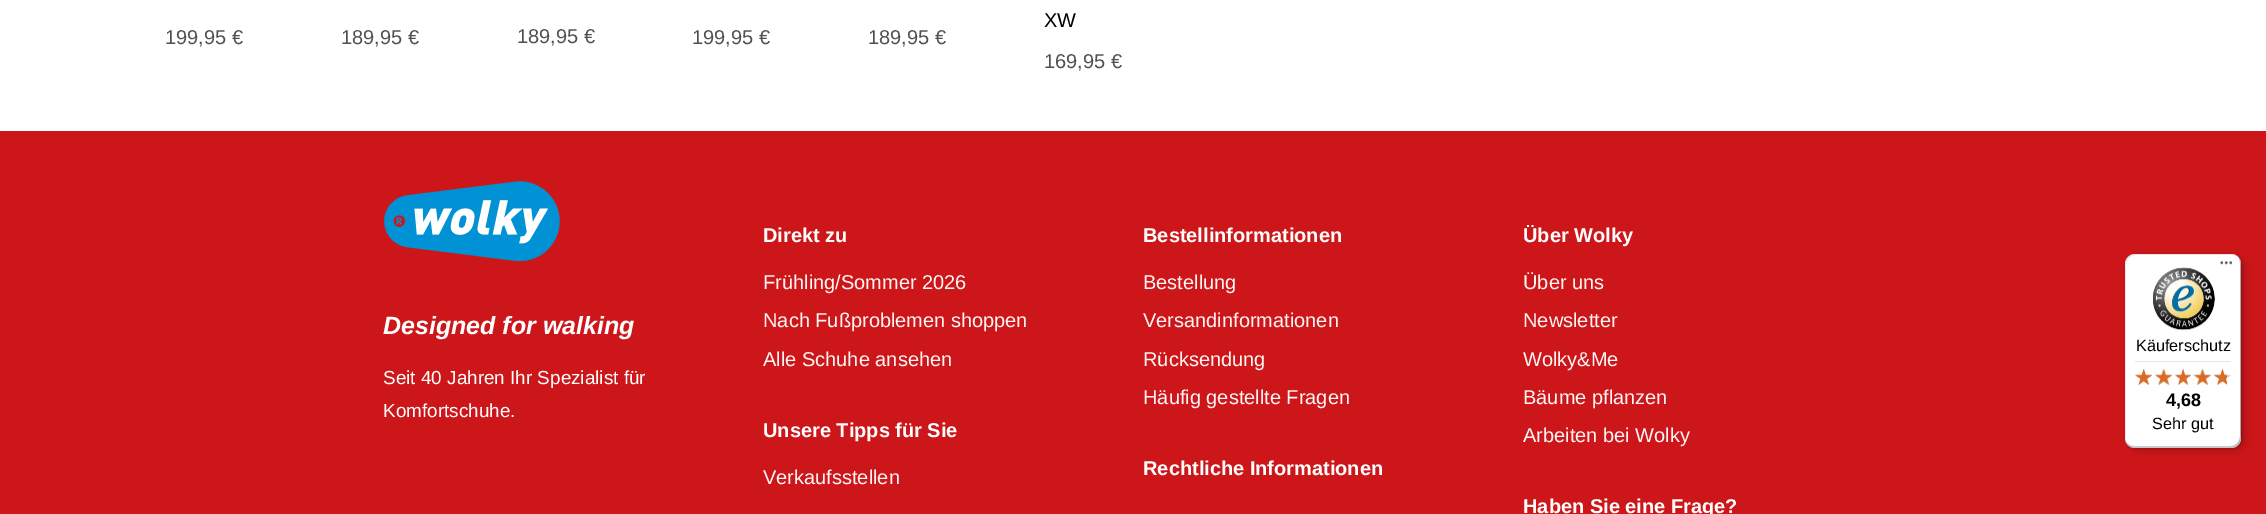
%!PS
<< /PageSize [2266 514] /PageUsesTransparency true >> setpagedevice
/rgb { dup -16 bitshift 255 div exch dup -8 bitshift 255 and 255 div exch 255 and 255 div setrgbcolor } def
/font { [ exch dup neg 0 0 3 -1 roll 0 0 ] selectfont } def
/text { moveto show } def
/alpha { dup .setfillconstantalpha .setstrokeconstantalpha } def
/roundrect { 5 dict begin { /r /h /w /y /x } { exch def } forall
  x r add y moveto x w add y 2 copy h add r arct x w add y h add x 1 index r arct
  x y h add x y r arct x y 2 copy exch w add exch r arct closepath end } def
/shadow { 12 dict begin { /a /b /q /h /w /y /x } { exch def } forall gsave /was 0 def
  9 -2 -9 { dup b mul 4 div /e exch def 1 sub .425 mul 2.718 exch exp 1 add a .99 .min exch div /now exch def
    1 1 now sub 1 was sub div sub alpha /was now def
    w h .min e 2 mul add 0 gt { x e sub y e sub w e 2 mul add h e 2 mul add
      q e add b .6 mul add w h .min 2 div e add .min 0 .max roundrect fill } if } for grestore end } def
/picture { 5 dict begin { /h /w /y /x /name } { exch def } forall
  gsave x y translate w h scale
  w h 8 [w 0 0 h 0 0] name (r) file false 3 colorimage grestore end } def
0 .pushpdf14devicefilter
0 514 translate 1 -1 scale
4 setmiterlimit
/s1 { /LiberationSans-Regular 20 font 16#505050 rgb } def
/s2 { /LiberationSans-Regular 20 font 16#000000 rgb } def
/s3 { /LiberationSans-BoldItalic 25 font 16#FFFFFF rgb } def
/s4 { /LiberationSans-Regular 18.9 font 16#FFFFFF rgb } def
/s5 { /LiberationSans-Bold 20 font 16#FFFFFF rgb } def
/s6 { /LiberationSans-Regular 20 font 16#FDF6F6 rgb } def
/s7 { /LiberationSans-Regular 16.25 font 16#000000 rgb } def
/s8 { /LiberationSans-Bold 18 font 16#000000 rgb } def
16#FFFFFF rgb
0 0 2266 514 rectfill
s1
(199,95 €) 165 44 text
(189,95 €) 341 44 text
(189,95 €) 517 43 text
(199,95 €) 692 44 text
(189,95 €) 868 44 text
s2
(XW) 1044 27 text
s1
(169,95 €) 1044 68 text
16#CD1619 rgb
0 131 2266 383 rectfill
(pic1.raw) 384 181 176 80 picture
s3
(Designed for walking) 383 334 text
s4
(Seit 40 Jahren Ihr Spezialist für) 383 384 text
(Komfortschuhe.) 383 417 text
s5
(Direkt zu) 763 242 text
s6
(Frühling/Sommer 2026) 763 289 text
(Nach Fußproblemen shoppen) 763 327 text
(Alle Schuhe ansehen) 763 366 text
s5
(Unsere Tipps für Sie) 763 437 text
s6
(Verkaufsstellen) 763 484 text
s5
(Bestellinformationen) 1143 242 text
s6
(Bestellung) 1143 289 text
(Versandinformationen) 1143 327 text
(Rücksendung) 1143 366 text
(Häufig gestellte Fragen) 1143 404 text
s5
(Rechtliche Informationen) 1143 475 text
(Über Wolky) 1523 242 text
s6
(Über uns) 1523 289 text
(Newsletter) 1523 327 text
(Wolky&Me) 1523 366 text
(Bäume pflanzen) 1523 404 text
(Arbeiten bei Wolky) 1523 442 text
s5
(Haben Sie eine Frage?) 1523 513 text
16#000000 rgb
2129 258 116 193 10 5 0.15 shadow
2126 255 117 194 10 1 0.15 shadow
16#FFFFFF rgb
2125 254 116 194 10 roundrect fill
0.1 alpha
16#000000 rgb
2136 255 moveto 2232 255 lineto 2234 255 2236 255 2237 256 curveto 2236 255 2233 254 2231 254 curveto 2135 254 lineto 2129 254 2125 258 2125 264 curveto 2125 438 lineto 2125 442 2127 445 2130 447 curveto 2128 445 2126 442 2126 439 curveto 2126 265 lineto 2126 259 2131 255 2136 255 curveto closepath fill
0.2 alpha
2126 442 moveto 2128 446 2131 448 2135 448 curveto 2231 448 lineto 2237 448 2241 444 2241 438 curveto 2241 264 lineto 2241 262 2240 260 2239 258 curveto 2240 262 lineto 2240 436 lineto 2240 442 2236 446 2230 446 curveto 2134 446 lineto 2131 446 2128 445 2126 442 curveto closepath fill
16#323232 rgb
2126 443 moveto 2128 446 2131 448 2135 448 curveto 2231 448 lineto 2237 448 2241 444 2241 438 curveto 2241 264 lineto 2241 262 2240 259 2239 258 curveto 2240 259 2240 261 2240 263 curveto 2240 437 lineto 2240 442 2236 447 2230 447 curveto 2134 447 lineto 2131 447 2128 445 2126 443 curveto closepath fill
1 alpha
(pic2.raw) 2220 261 13 4 picture
0.3 alpha
16#FFFFFF rgb
2126 443 moveto 2128 446 2131 448 2135 448 curveto 2231 448 lineto 2237 448 2241 444 2241 438 curveto 2241 437 lineto 2241 442 2236 447 2231 447 curveto 2134 447 lineto 2131 447 2128 445 2126 443 curveto closepath fill
1 alpha
(pic3.raw) 2153 267 62 64 picture
s7
(Käuferschutz) 2136 351 text
16#E5E5E5 rgb
2135 361 96 1 rectfill
(pic9.raw) 2135 369 17 16 picture
(pic4.raw) 2135 368 17 17 picture
(pic10.raw) 2155 369 17 16 picture
(pic5.raw) 2155 368 18 17 picture
(pic11.raw) 2175 369 16 16 picture
(pic6.raw) 2175 368 16 17 picture
(pic12.raw) 2193 369 18 16 picture
(pic7.raw) 2193 368 18 17 picture
(pic13.raw) 2214 369 17 16 picture
(pic8.raw) 2214 368 13 17 picture
s8
(4,68) 2166 406 text
s7
(Sehr gut) 2152 429 text
.poppdf14devicefilter showpage
